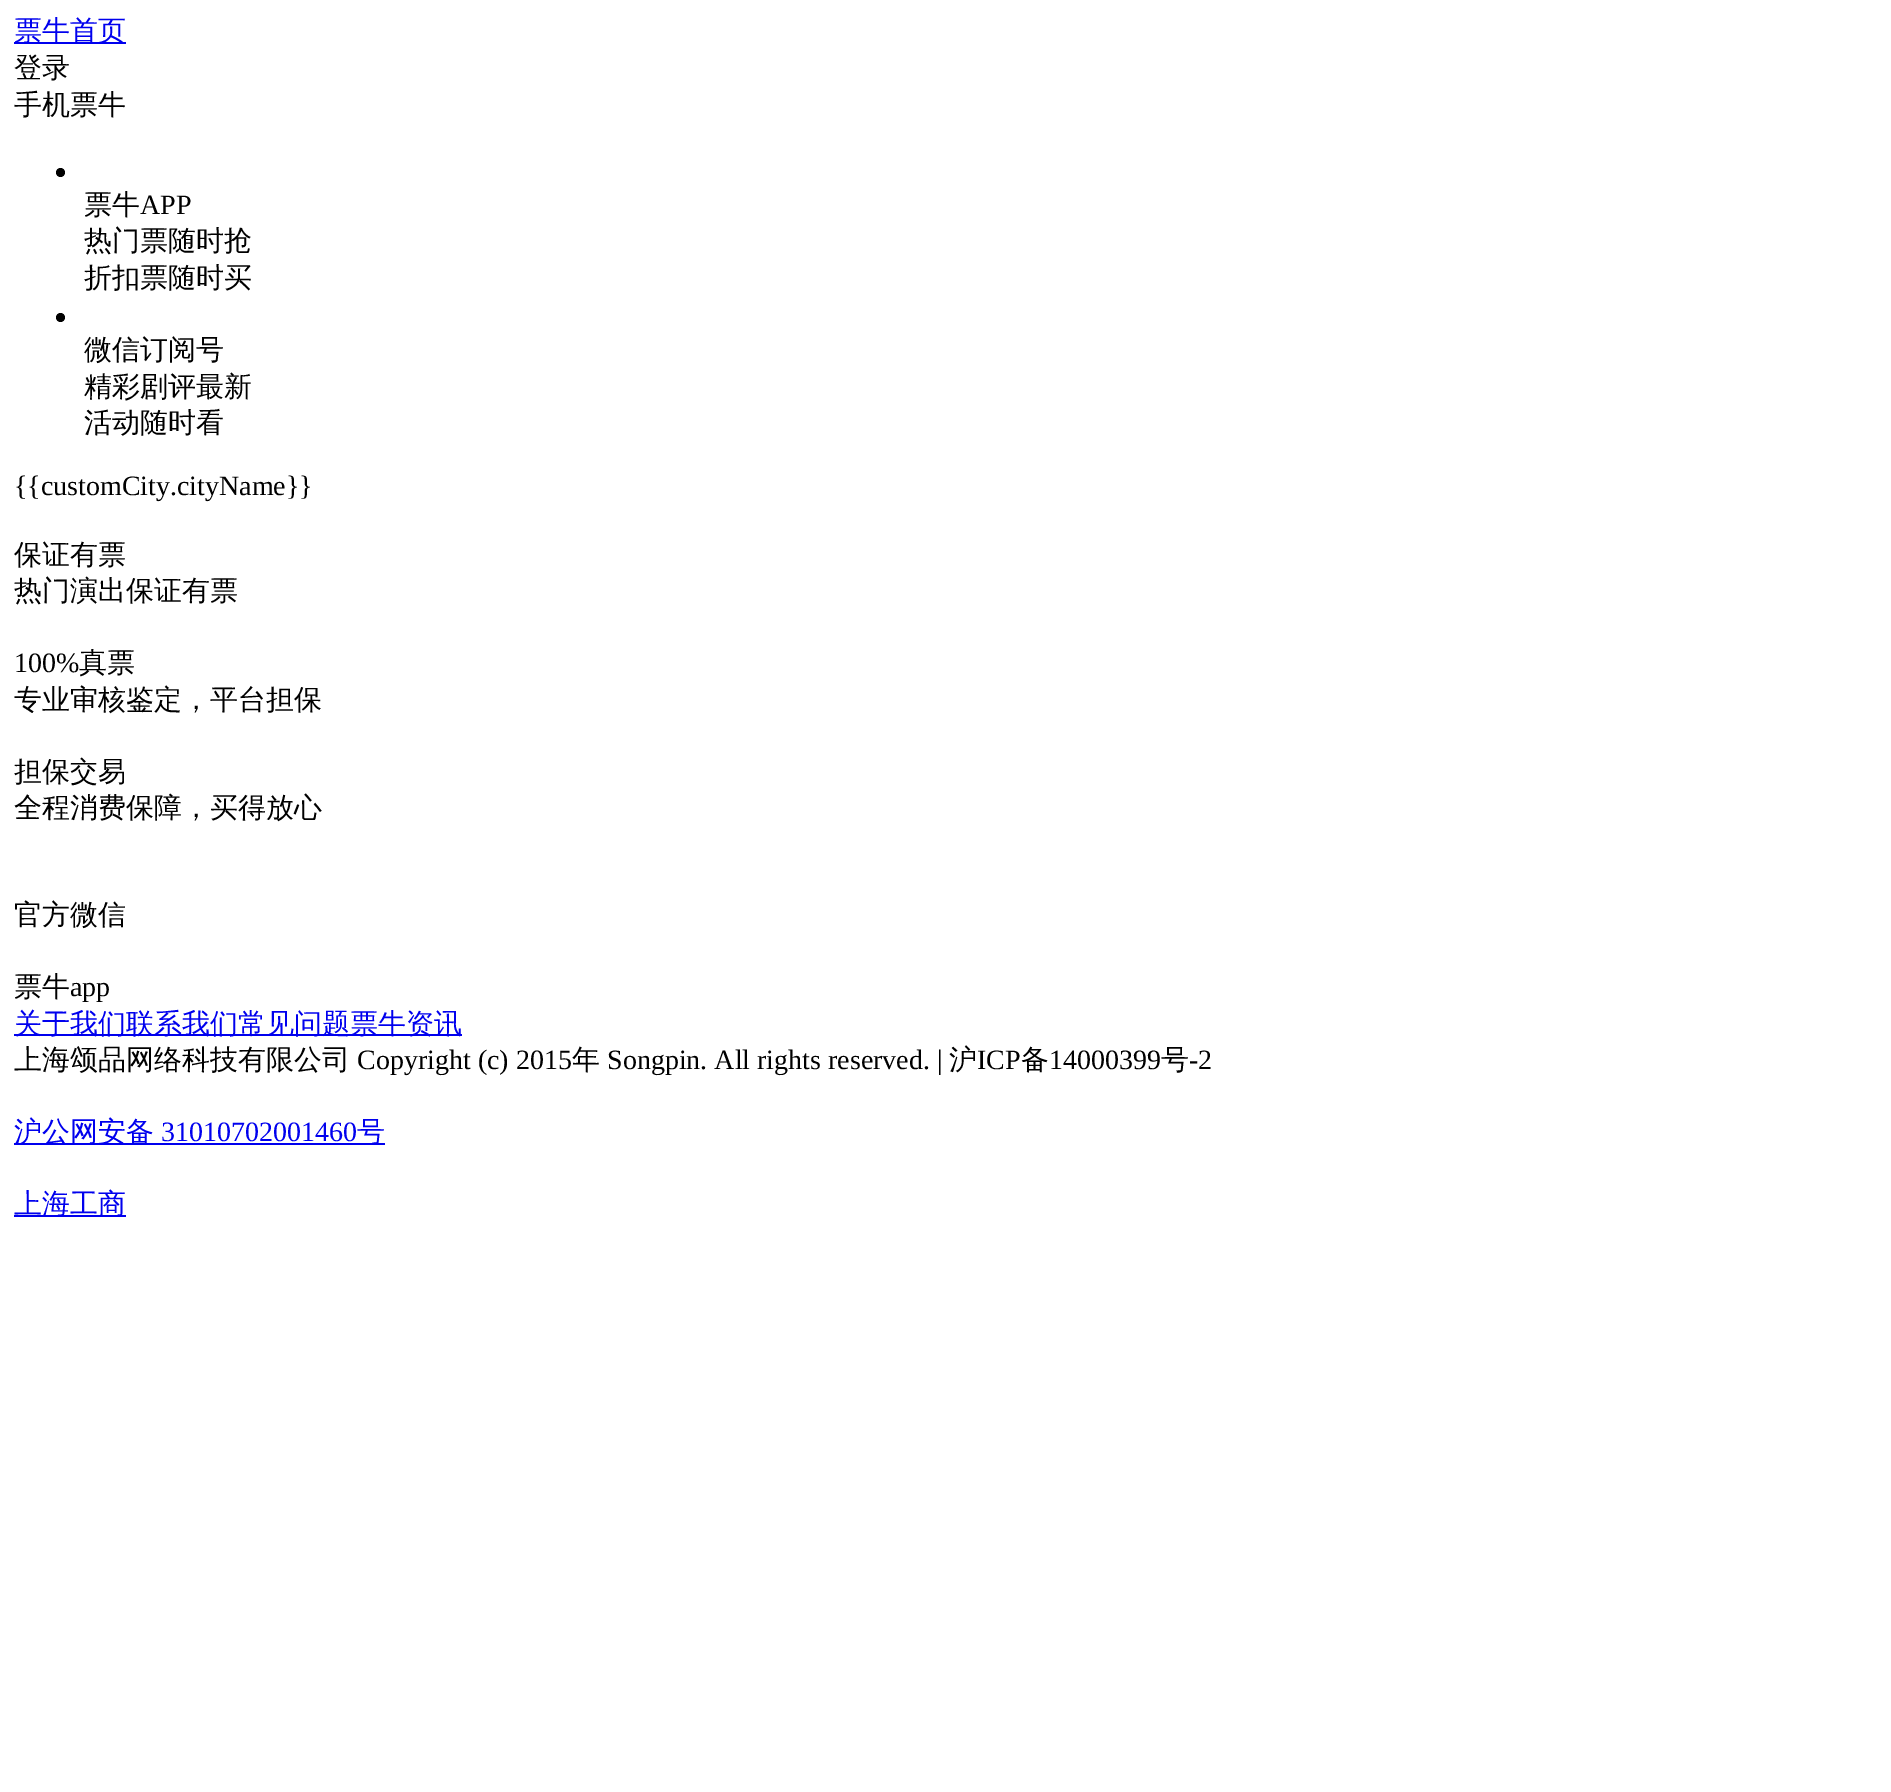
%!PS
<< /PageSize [1891 1792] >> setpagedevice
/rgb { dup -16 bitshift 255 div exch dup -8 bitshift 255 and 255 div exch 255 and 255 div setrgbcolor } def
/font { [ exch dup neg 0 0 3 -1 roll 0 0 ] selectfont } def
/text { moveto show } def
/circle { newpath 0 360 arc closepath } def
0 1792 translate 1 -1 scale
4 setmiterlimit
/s1 { /WenQuanYiZenHei-Medium 28 font 16#0000EE rgb } def
/s2 { /WenQuanYiZenHei-Medium 28 font 16#000000 rgb } def
/s3 { /LiberationSerif-Regular 28 font 16#000000 rgb } def
/s4 { /LiberationSerif-Regular 28 font 16#0000EE rgb } def
16#FFFFFF rgb
0 0 1891 1792 rectfill
16#0000EE rgb
14 42 112 2 rectfill
s1
(票牛首页) 14 40 text
s2
(登录) 14 77 text
(手机票牛) 14 114 text
60.5 172.5 4.5 circle fill
(票牛) 84 214 text
s3
(APP) 140 214 text
s2
(热门票随时抢) 84 250 text
(折扣票随时买) 84 287 text
60.5 317.5 4.5 circle fill
(微信订阅号) 84 359 text
(精彩剧评最新) 84 396 text
(活动随时看) 84 432 text
s3
({{customCity.cityName}}) 14 495 text
s2
(保证有票) 14 564 text
(热门演出保证有票) 14 600 text
s3
(100%) 14 672 text
s2
(真票) 79 672 text
(专业审核鉴定，平台担保) 14 709 text
(担保交易) 14 781 text
(全程消费保障，买得放心) 14 817 text
(官方微信) 14 924 text
(票牛) 14 996 text
s3
(app) 70 996 text
16#0000EE rgb
14 1034 448 2 rectfill
s1
(关于我们联系我们常见问题票牛资讯) 14 1033 text
s2
(上海颂品网络科技有限公司) 14 1069 text
s3
(Copyright \(c\) 2015) 357 1069 text
s2
(年) 572 1069 text
s3
(Songpin. All rights reserved. |) 607 1069 text
s2
(沪) 949 1069 text
s3
(ICP) 977 1069 text
s2
(备) 1021 1069 text
s3
(14000399) 1049 1069 text
s2
(号) 1161 1069 text
s3
(-2) 1189 1069 text
16#0000EE rgb
14 1143 371 2 rectfill
s1
(沪公网安备) 14 1141 text
s4
(31010702001460) 161 1141 text
s1
(号) 357 1141 text
14 1215 112 2 rectfill
(上海工商) 14 1213 text
showpage
